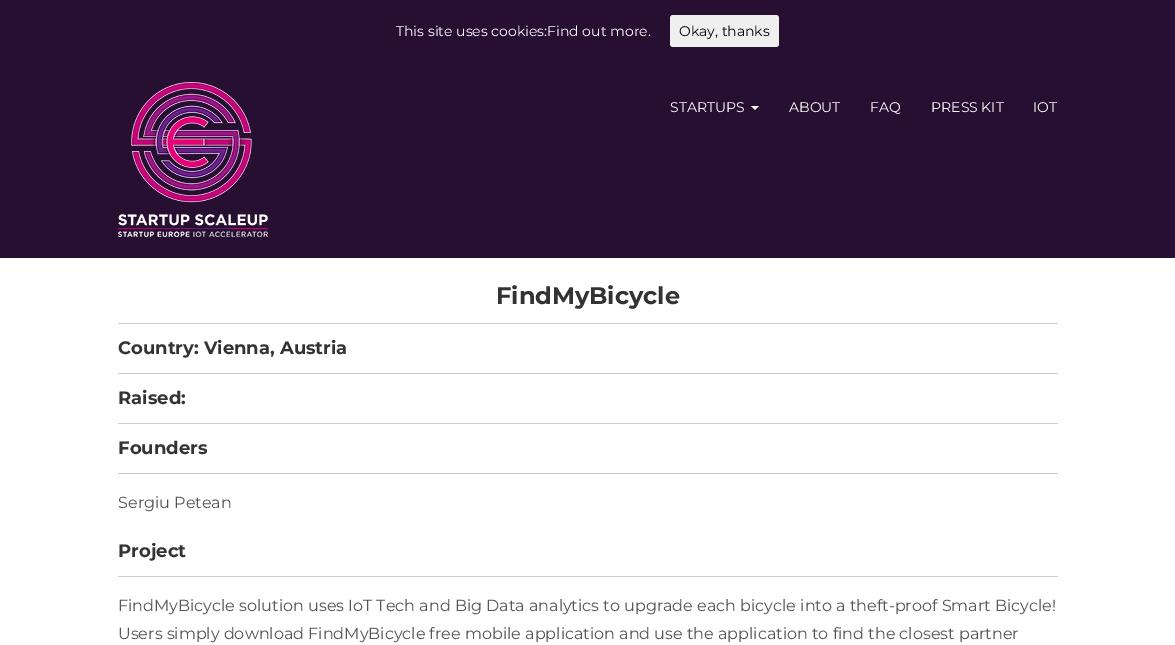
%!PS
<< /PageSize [1175 645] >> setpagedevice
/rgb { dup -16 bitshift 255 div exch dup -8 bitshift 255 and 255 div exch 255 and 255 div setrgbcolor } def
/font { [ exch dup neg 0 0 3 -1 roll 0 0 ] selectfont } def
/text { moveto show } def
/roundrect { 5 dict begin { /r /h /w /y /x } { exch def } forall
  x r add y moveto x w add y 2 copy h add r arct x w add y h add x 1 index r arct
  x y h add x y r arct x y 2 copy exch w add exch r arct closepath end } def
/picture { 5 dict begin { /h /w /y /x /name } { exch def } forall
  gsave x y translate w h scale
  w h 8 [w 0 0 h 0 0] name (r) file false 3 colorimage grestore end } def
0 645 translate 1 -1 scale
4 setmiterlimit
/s1 { /Montserrat-Regular 14 font 16#FFFFFF rgb } def
/s2 { /Montserrat-Regular 14 font 16#000000 rgb } def
/s3 { /Montserrat-Bold 24 font 16#333333 rgb } def
/s4 { /Montserrat-Bold 18 font 16#333333 rgb } def
/s5 { /Montserrat-Regular 16 font 16#555555 rgb } def
16#FFFFFF rgb
0 0 1175 645 rectfill
16#270F31 rgb
0 0 1175 258 rectfill
s1
(This site uses cookies:Find out more.) 396 36 text
16#EFEFEF rgb
670 15 109 32 3 roundrect fill
s2
(Okay, thanks) 679 36 text
(pic1.raw) 118 82 150 155 picture
s1
(STARTUPS) 670 112 text
751 106 moveto 759 106 lineto 755 110 lineto closepath fill
(ABOUT) 789 112 text
(FAQ) 870 112 text
(PRESS KIT) 931 112 text
(IOT) 1033 112 text
s3
(FindMyBicycle) 496 304 text
16#CCCCCC rgb
118 323 940 1 rectfill
s4
(Country: Vienna, Austria) 118 354 text
16#CCCCCC rgb
118 373 940 1 rectfill
s4
(Raised:) 118 404 text
16#CCCCCC rgb
118 423 940 1 rectfill
s4
(Founders) 118 454 text
16#CCCCCC rgb
118 473 940 1 rectfill
s5
(Sergiu Petean) 118 508 text
s4
(Project) 118 557 text
16#CCCCCC rgb
118 576 940 1 rectfill
s5
(FindMyBicycle solution uses IoT Tech and Big Data analytics to upgrade each bicycle into a theft-proof Smart Bicycle!) 118 611 text
(Users simply download FindMyBicycle free mobile application and use the application to find the closest partner) 118 639 text
showpage
